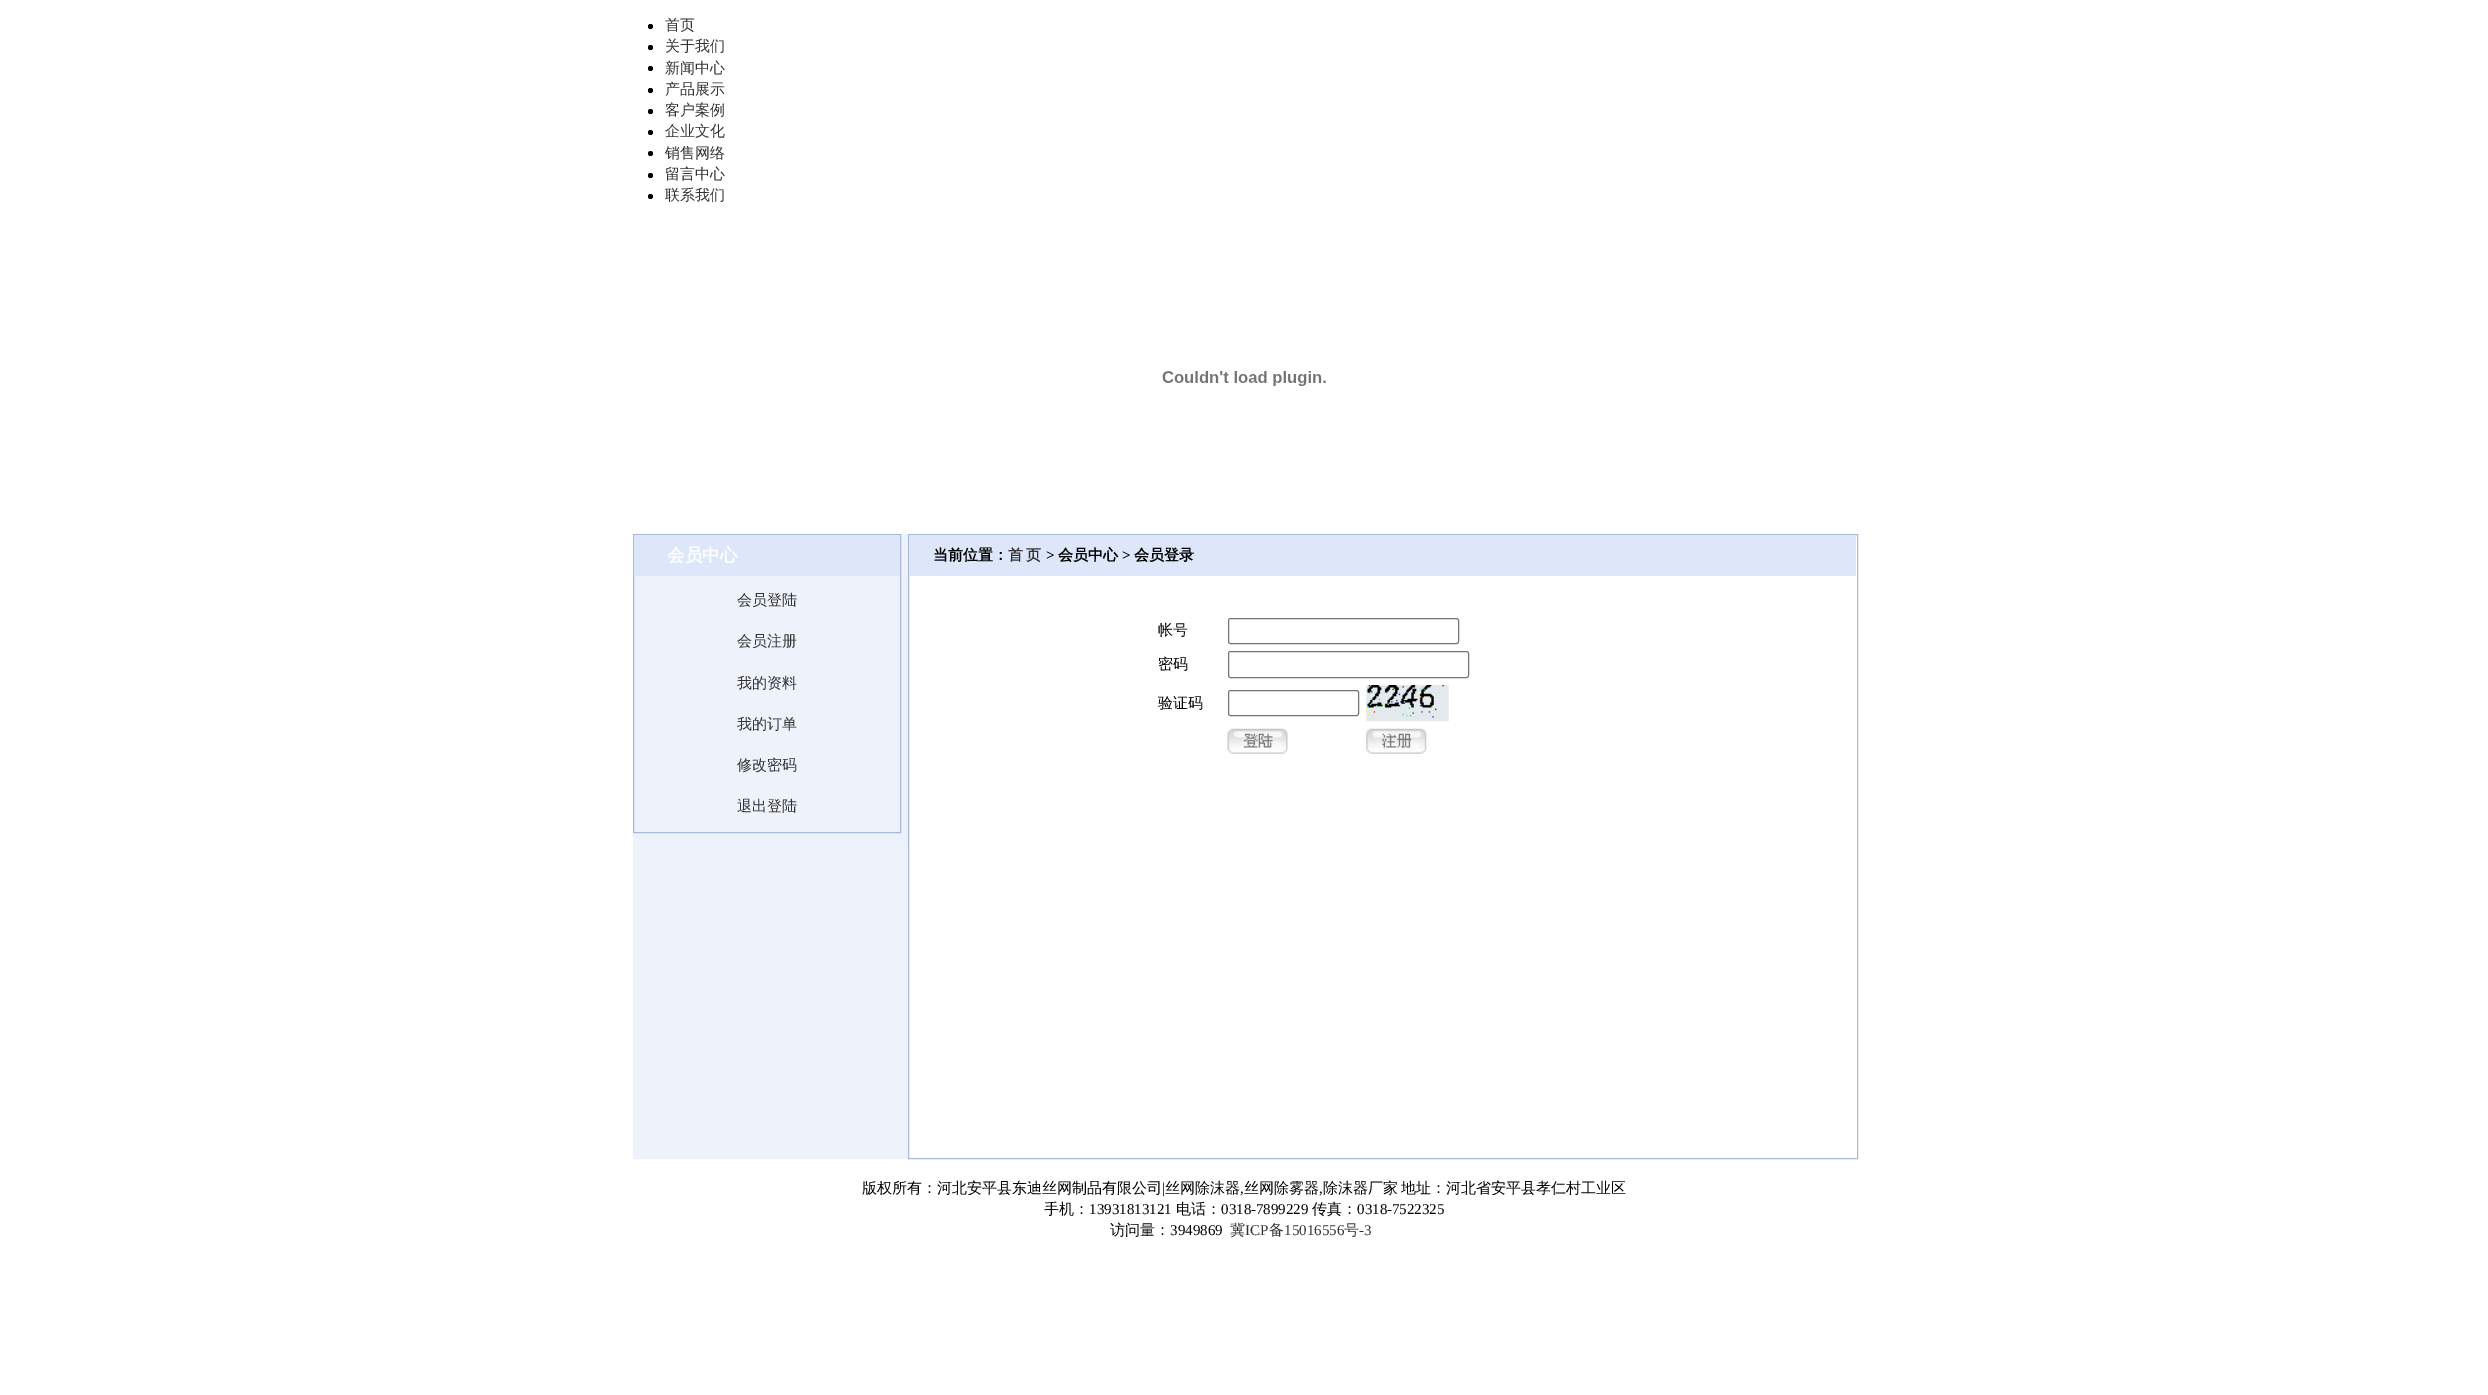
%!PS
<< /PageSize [2488 1395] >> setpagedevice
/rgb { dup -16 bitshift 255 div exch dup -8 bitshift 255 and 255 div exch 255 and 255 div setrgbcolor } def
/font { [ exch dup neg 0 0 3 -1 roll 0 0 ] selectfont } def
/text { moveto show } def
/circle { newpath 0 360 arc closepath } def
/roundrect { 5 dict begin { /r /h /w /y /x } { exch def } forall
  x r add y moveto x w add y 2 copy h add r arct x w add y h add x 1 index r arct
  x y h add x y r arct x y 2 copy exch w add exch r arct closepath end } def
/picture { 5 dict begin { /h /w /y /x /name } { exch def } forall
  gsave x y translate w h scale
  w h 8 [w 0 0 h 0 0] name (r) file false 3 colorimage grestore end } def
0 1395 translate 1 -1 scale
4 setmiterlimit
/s1 { /WenQuanYiZenHei-Medium 15 font 16#333333 rgb } def
/s2 { /WenQuanYiZenHei-Bold 17.5 font 16#FFFFFF rgb } def
/s3 { /WenQuanYiZenHei-Bold 15 font 16#000000 rgb } def
/s4 { /LiberationSerif-Bold 15 font 16#000000 rgb } def
/s5 { /WenQuanYiZenHei-Medium 15 font 16#000000 rgb } def
/s6 { /LiberationSerif-Regular 15 font 16#000000 rgb } def
/s7 { /LiberationSerif-Regular 15 font 16#333333 rgb } def
16#FFFFFF rgb
0 0 2488 1395 rectfill
16#000000 rgb
650.5 26.5 2.5 circle fill
s1
(首页) 665 30 text
16#000000 rgb
650.5 47.5 2.5 circle fill
s1
(关于我们) 665 51 text
16#000000 rgb
650.5 68.5 2.5 circle fill
s1
(新闻中心) 665 73 text
16#000000 rgb
650.5 90.5 2.5 circle fill
s1
(产品展示) 665 94 text
16#000000 rgb
650.5 111.5 2.5 circle fill
s1
(客户案例) 665 115 text
16#000000 rgb
650.5 132.5 2.5 circle fill
s1
(企业文化) 665 136 text
16#000000 rgb
650.5 153.5 2.5 circle fill
s1
(销售网络) 665 158 text
16#000000 rgb
650.5 175.5 2.5 circle fill
s1
(留言中心) 665 179 text
16#000000 rgb
650.5 196.5 2.5 circle fill
s1
(联系我们) 665 200 text
(pic1.raw) 1162 371 164 15 picture
16#EEF2FA rgb
633 534 275 625 rectfill
16#A9B9DA rgb
633.5 534.5 267 298 rectstroke
16#DEE7F9 rgb
634 535 266 41 rectfill
s2
(会员中心) 667 561 text
s1
(会员登陆) 737 605 text
(会员注册) 737 646 text
(我的资料) 737 688 text
(我的订单) 737 729 text
(修改密码) 737 770 text
(退出登陆) 737 811 text
16#A9B9DA rgb
908.5 534.5 949 624 rectstroke
16#DEE7F9 rgb
909 535 947 41 rectfill
s3
(当前位置：) 933 560 text
16#333333 rgb
1008 560 moveto -1 0 32 (首 页) widthshow
s4
(>) 1046 560 text
s3
(会员中心) 1058 560 text
s4
(>) 1122 560 text
s3
(会员登录) 1134 560 text
s5
(帐号) 1158 635 text
16#767676 rgb
1228.5 618.5 230 25 2 roundrect stroke
s5
(密码) 1158 669 text
16#767676 rgb
1228.5 651.5 240 26 2 roundrect stroke
s5
(验证码) 1158 708 text
16#767676 rgb
1228.5 690.5 130 25 2 roundrect stroke
(pic2.raw) 1366 685 83 37 picture
(pic3.raw) 1227 728 61 26 picture
(pic4.raw) 1366 728 61 26 picture
s5
(版权所有：河北安平县东迪丝网制品有限公司) 862 1193 text
s6
(|) 1162 1193 text
s5
(丝网除沫器) 1165 1193 text
s6
(,) 1240 1193 text
s5
(丝网除雾器) 1244 1193 text
s6
(,) 1319 1193 text
/WenQuanYiZenHei-Medium 15 font
1323 1193 moveto -1 0 32 (除沫器厂家 地址：河北省安平县孝仁村工业区) widthshow
(手机：) 1044 1214 text
s6
(13931813121) 1089 1214 text
s5
(电话：) 1176 1214 text
s6
(0318-7899229) 1221 1214 text
s5
(传真：) 1312 1214 text
s6
(0318-7522325) 1357 1214 text
s5
(访问量：) 1110 1235 text
s6
(3949869) 1170 1235 text
s1
(冀) 1230 1235 text
s7
(ICP) 1245 1235 text
s1
(备) 1269 1235 text
s7
(15016556) 1284 1235 text
s1
(号) 1344 1235 text
s7
(-3) 1359 1235 text
showpage
